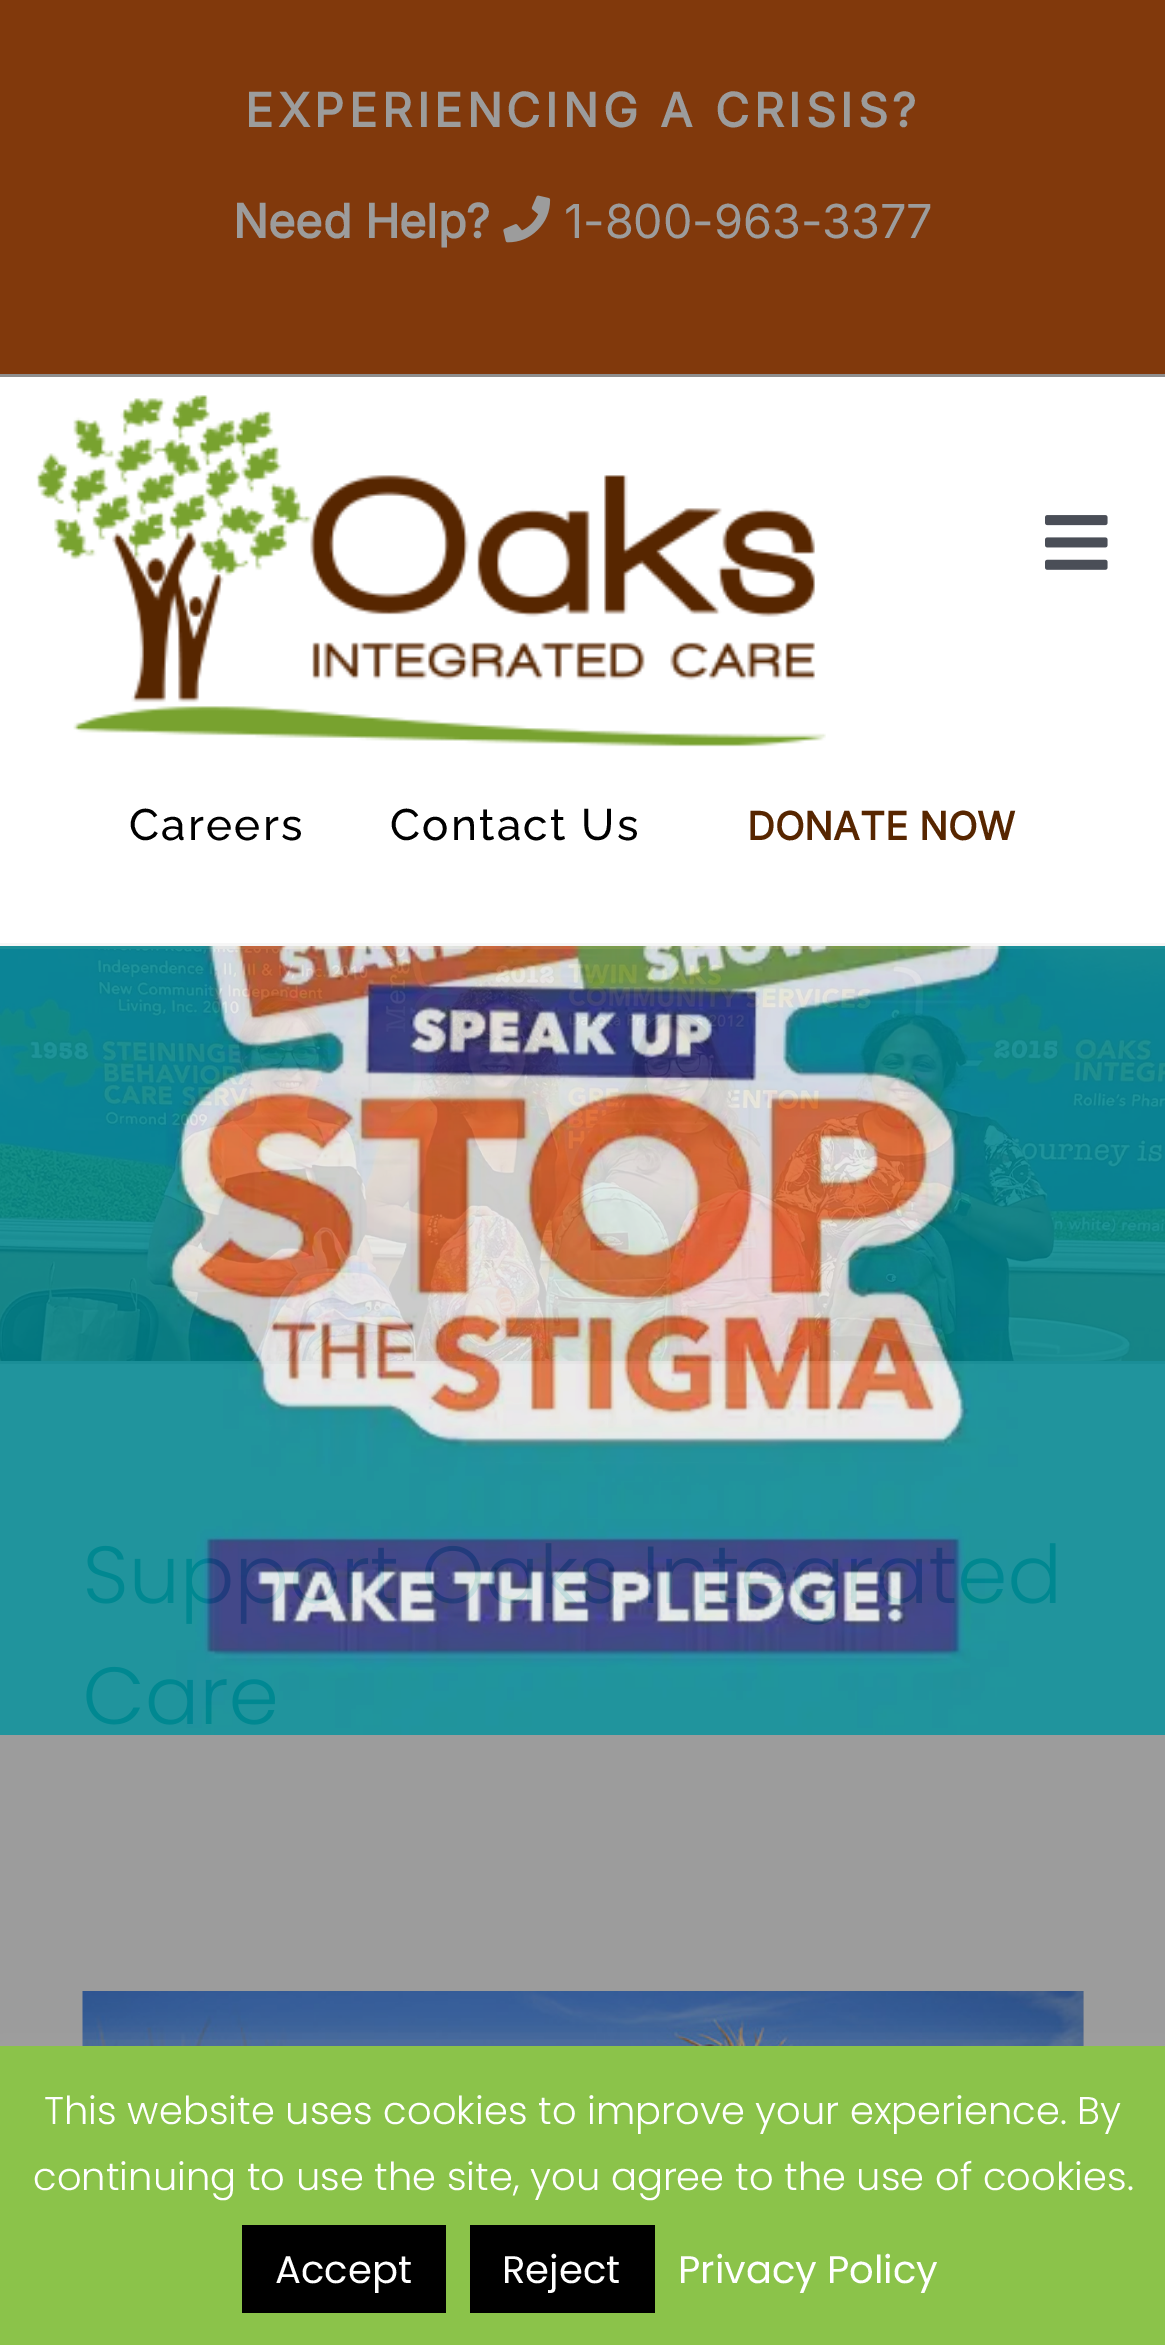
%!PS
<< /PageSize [1165 2345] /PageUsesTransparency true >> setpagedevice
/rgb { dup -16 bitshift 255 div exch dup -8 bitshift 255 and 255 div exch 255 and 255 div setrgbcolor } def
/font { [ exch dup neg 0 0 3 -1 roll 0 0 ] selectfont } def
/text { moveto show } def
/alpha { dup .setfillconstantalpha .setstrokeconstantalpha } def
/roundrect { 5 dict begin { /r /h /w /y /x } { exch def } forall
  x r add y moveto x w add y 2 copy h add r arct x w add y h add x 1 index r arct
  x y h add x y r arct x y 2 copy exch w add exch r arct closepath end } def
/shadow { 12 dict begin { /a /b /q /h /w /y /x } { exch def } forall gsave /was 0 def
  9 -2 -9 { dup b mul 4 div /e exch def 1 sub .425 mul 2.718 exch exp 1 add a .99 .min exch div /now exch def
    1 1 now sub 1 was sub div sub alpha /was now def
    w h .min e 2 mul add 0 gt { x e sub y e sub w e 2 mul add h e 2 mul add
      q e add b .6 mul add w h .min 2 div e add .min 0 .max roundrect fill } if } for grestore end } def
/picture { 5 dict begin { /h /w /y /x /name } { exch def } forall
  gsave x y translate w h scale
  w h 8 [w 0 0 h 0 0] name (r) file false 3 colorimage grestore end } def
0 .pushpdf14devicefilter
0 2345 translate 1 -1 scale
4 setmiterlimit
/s1 { /Inter-Bold 46.75 font 16#9C9C9C rgb } def
/s2 { /Inter-Regular 46.75 font 16#9C9C9C rgb } def
/s3 { /Inter-Bold 38.5 font 16#572600 rgb } def
/s4 { /Poppins-Light 38.5 font 16#FFFFFF rgb } def
/s5 { /Poppins-Regular 38.5 font 16#FFFFFF rgb } def
16#9C9C9C rgb
0 0 1165 2345 rectfill
16#81390C rgb
0 0 1165 374 rectfill
16#8F8E8E rgb
0 374 1165 3 rectfill
/Inter-Bold 46.75 font
16#9C9C9C rgb
245 127 moveto 4.7 0 (EXPERIENCING A CRISIS?) ashow
(Need Help?) 233 238 text
(pic1.raw) 503 195 48 48 picture
s2
(1-800-963-3377) 564 238 text
16#FFFFFF rgb
0 377 1165 566 rectfill
16#F6F6F6 rgb
0 943 1165 3 rectfill
(pic2.raw) 36 395 790 352 picture
(pic3.raw) 1045 515 63 55 picture
/Raleway-Medium 44 font
16#000000 rgb
129 840 moveto 2.25 0 (Careers) ashow
390 840 moveto 2.25 0 (Contact Us) ashow
s3
(DONATE NOW) 747 840 text
(pic4.raw) 0 946 1165 418 picture
16#949494 rgb
1083 1991 1 55 rectfill
(pic5.raw) 82 1991 1002 55 picture
(pic6.raw) 0 946 1165 789 picture
16#ACABAB rgb
0 2043 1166 300 0 14 0.3 shadow
16#8BC34A rgb
0 2046 1165 299 rectfill
s4
(This website uses cookies to improve your experience. By) 44 2124 text
(continuing to use the site, you agree to the use of cookies.) 33 2190 text
16#000000 rgb
242 2225 204 88 rectfill
s5
(Accept) 275 2283 text
16#000000 rgb
470 2225 185 88 rectfill
s5
(Reject) 502 2283 text
(Privacy Policy) 678 2283 text
.poppdf14devicefilter showpage
